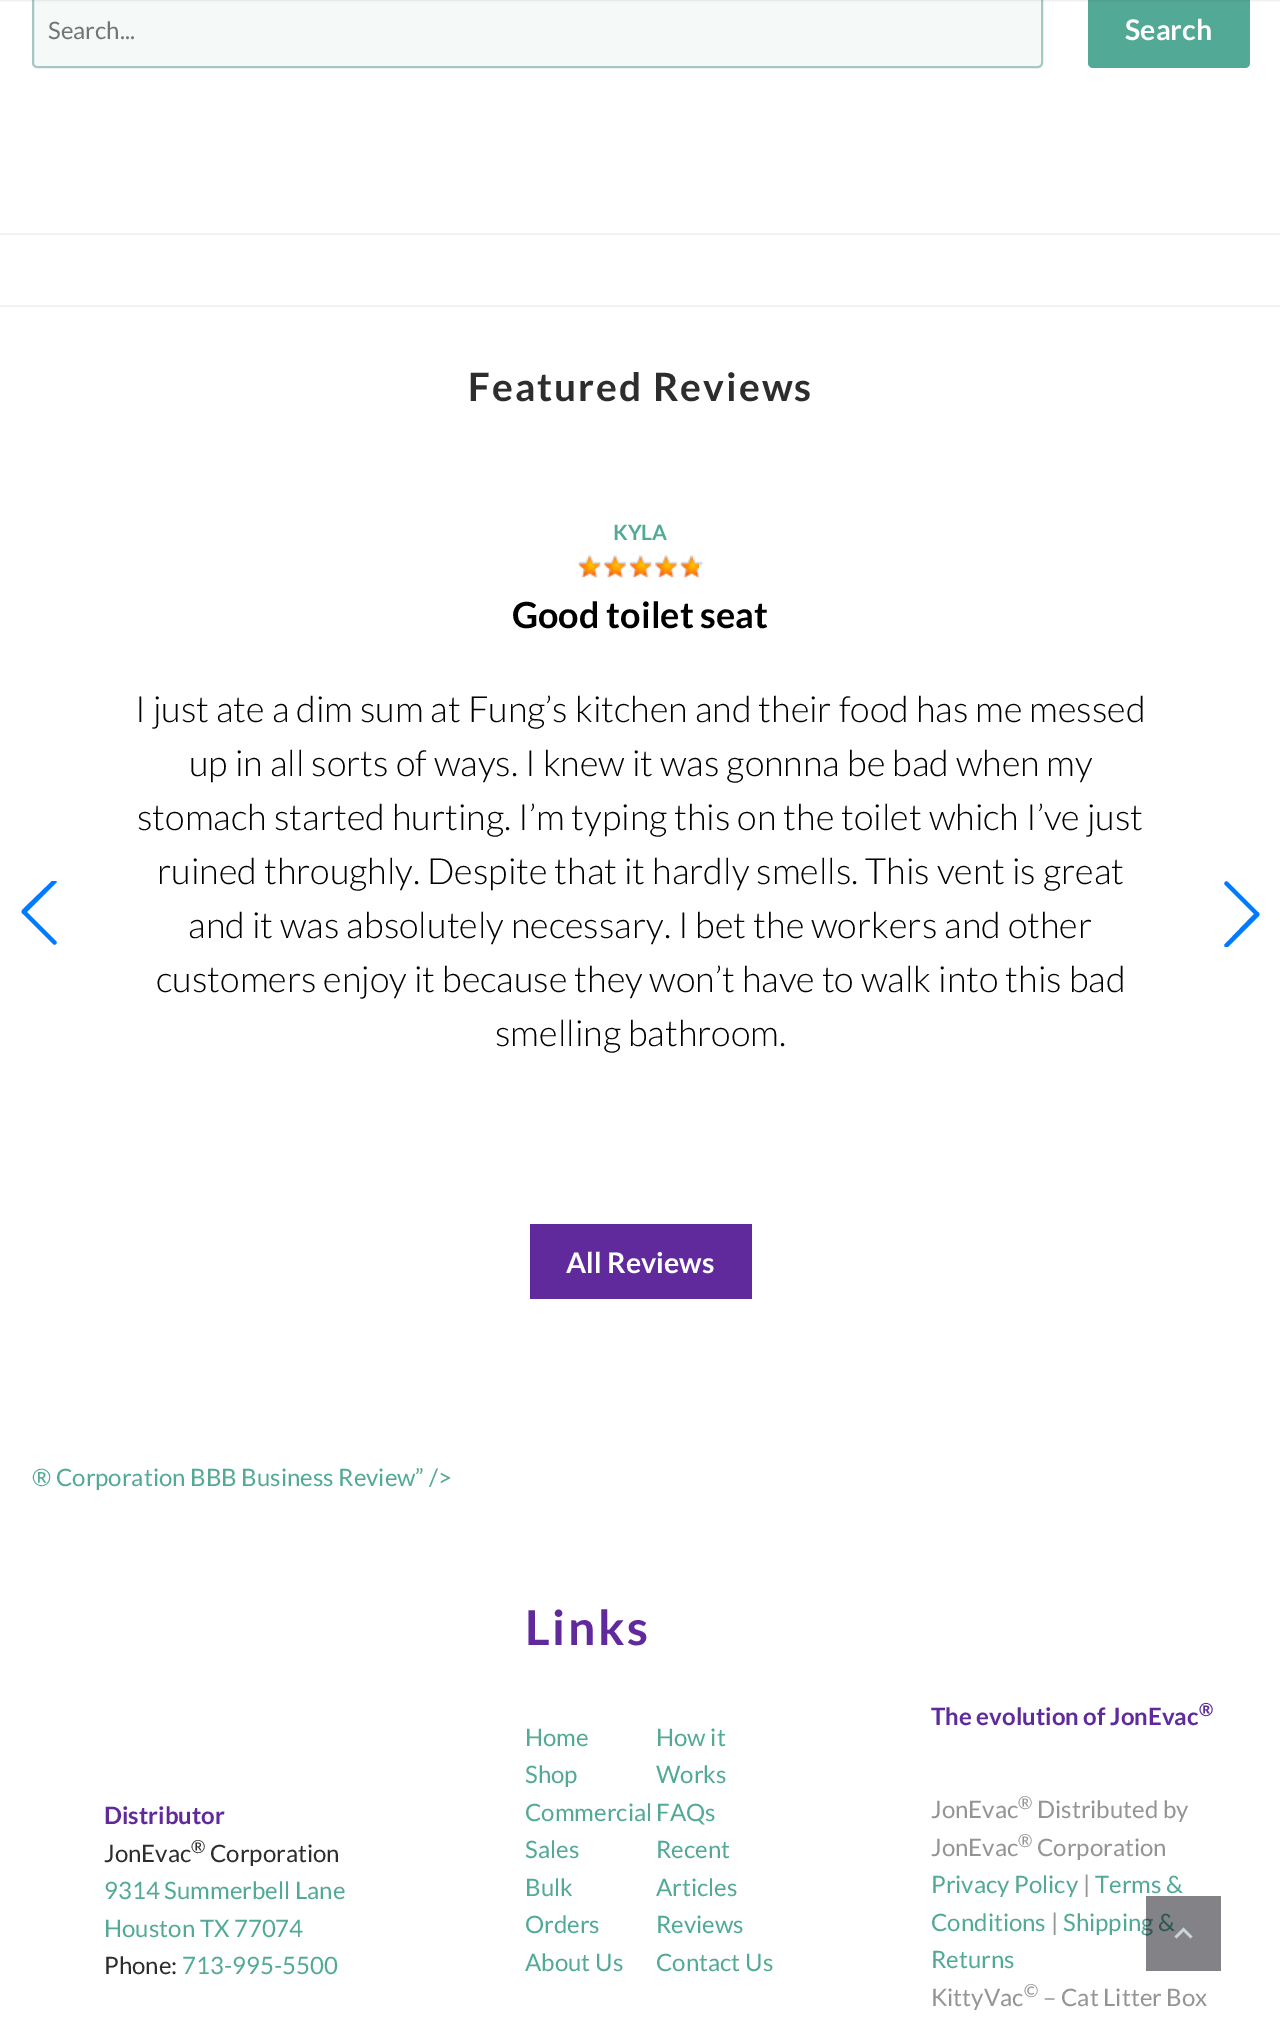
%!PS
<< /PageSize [1280 2023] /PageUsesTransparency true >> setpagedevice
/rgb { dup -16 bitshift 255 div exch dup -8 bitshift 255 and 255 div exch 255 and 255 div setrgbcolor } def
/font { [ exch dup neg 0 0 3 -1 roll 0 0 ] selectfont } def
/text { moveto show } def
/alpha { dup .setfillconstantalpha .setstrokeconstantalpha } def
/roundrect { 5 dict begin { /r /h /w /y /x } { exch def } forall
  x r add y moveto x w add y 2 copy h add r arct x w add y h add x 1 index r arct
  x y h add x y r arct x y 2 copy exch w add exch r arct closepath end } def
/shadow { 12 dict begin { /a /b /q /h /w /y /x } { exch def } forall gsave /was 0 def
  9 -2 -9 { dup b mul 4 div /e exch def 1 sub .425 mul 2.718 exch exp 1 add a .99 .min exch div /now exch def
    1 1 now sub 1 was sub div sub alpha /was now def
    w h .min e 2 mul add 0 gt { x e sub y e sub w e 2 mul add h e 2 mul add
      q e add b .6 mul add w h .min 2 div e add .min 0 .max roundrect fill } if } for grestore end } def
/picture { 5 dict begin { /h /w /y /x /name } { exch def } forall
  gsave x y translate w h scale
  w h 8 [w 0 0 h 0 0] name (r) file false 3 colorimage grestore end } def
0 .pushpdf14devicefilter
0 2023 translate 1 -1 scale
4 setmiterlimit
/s1 { /Lato-Regular 24 font 16#757575 rgb } def
/s2 { /Lato-Bold 28.5 font 16#FFFFFF rgb } def
/s3 { /Lato-Bold 21 font 16#52A996 rgb } def
/s4 { /Lato-Bold 36 font 16#000000 rgb } def
/s5 { /Lato-Light 36 font 16#000000 rgb } def
/s6 { /Lato-Regular 24 font 16#52A996 rgb } def
/s7 { /Lato-Bold 24 font 16#602A9D rgb } def
/s8 { /Lato-Regular 24 font 16#2D2D2D rgb } def
/s9 { /Lato-Regular 18 font 16#2D2D2D rgb } def
/s10 { /Lato-Bold 18 font 16#602A9D rgb } def
/s11 { /Lato-Regular 24 font 16#949494 rgb } def
/s12 { /Lato-Regular 18 font 16#949494 rgb } def
16#FFFFFF rgb
0 0 1280 2023 rectfill
16#F5F9F8 rgb
33 -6 1009 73 4 roundrect gsave fill grestore
16#A6C8C2 rgb
2 setlinewidth
stroke
16#52A996 rgb
1088 -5 162 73 5 roundrect fill
16#384554 rgb
0 -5 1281 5 0 1.5 0.2 shadow
s1
(Search...) 48 39 text
s2
(Search) 1125 40 text
16#F2F2F2 rgb
0 233 1280 2 rectfill
0 305 1280 2 rectfill
/Lato-Bold 39 font
16#2D2D2D rgb
468 401 moveto 2 0 (Featured Reviews) ashow
gsave
6 881 66 66 rectclip
16#007AFF rgb
56 880 moveto 57 880 57 882 56 883 curveto 27 912 lineto 56 941 lineto 57 942 57 943 56 944 curveto 55 945 54 945 53 944 curveto 23 914 lineto 21 913 21 911 23 909 curveto 53 880 lineto 54 879 55 879 56 880 curveto closepath fill
grestore
s3
(KYLA) 613 540 text
(pic1.raw) 578 554 126 23 picture
(pic2.raw) 578 553 121 25 picture
s4
(Good toilet seat) 512 628 text
s5
(I just ate a dim sum at Fung’s kitchen and their food has me messed) 135 722 text
(up in all sorts of ways. I knew it was gonnna be bad when my) 189 776 text
(stomach started hurting. I’m typing this on the toilet which I’ve just) 137 830 text
(ruined throughly. Despite that it hardly smells. This vent is great) 157 884 text
(and it was absolutely necessary. I bet the workers and other) 188 938 text
(customers enjoy it because they won’t have to walk into this bad) 156 992 text
(smelling bathroom.) 495 1046 text
gsave
1209 881 66 66 rectclip
16#007AFF rgb
1225 947 moveto 1224 946 1224 944 1225 944 curveto 1254 914 lineto 1225 885 lineto 1224 884 1224 883 1225 882 curveto 1226 881 1227 881 1228 882 curveto 1258 912 lineto 1260 913 1260 915 1258 917 curveto 1228 947 lineto 1227 948 1226 948 1225 947 curveto closepath fill
grestore
16#602A9D rgb
530 1224 222 75 rectfill
s2
(All Reviews) 566 1273 text
s6
(® Corporation BBB Business Review” />) 32 1486 text
s7
(Distributor) 104 1824 text
s8
(JonEvac) 104 1862 text
s9
(®) 191 1853 text
s8
(Corporation) 210 1862 text
s6
(9314 Summerbell Lane) 104 1899 text
(Houston TX 77074) 104 1937 text
s8
(Phone:) 104 1974 text
s6
(713-995-5500) 182 1974 text
/Lato-Bold 48 font
16#602A9D rgb
525 1645 moveto 2.5 0 (Links) ashow
s6
(Home) 525 1746 text
(Shop) 525 1783 text
(Commercial) 525 1821 text
(Sales) 525 1858 text
(Bulk) 525 1896 text
(Orders) 525 1933 text
(About Us) 525 1971 text
(How it) 656 1746 text
(Works) 656 1783 text
(FAQs) 656 1821 text
(Recent) 656 1858 text
(Articles) 656 1896 text
(Reviews) 656 1933 text
(Contact Us) 656 1971 text
s7
(The evolution of JonEvac) 931 1725 text
s10
(®) 1199 1716 text
s11
(JonEvac) 931 1818 text
s12
(®) 1018 1809 text
s11
(Distributed by) 1037 1818 text
(JonEvac) 931 1856 text
s12
(®) 1018 1847 text
s11
(Corporation) 1037 1856 text
s6
(Privacy Policy) 931 1893 text
s11
(|) 1083 1893 text
s6
(Terms &) 1095 1893 text
(Conditions) 931 1931 text
s11
(|) 1051 1931 text
s6
(Shipping &) 1063 1931 text
(Returns) 931 1968 text
s11
(KittyVac) 931 2006 text
s12
(©) 1024 1997 text
s11
(– Cat Litter Box) 1043 2006 text
0.5 alpha
16#06060F rgb
1146 1896 75 75 rectfill
1 alpha
16#CCD4DA rgb
1176.5 1938.5 moveto 1183.5 1931.5 lineto 1190.5 1938.5 lineto 1192.5 1936.5 lineto 1183.5 1927.5 lineto 1174.5 1936.5 lineto closepath fill
.poppdf14devicefilter showpage
